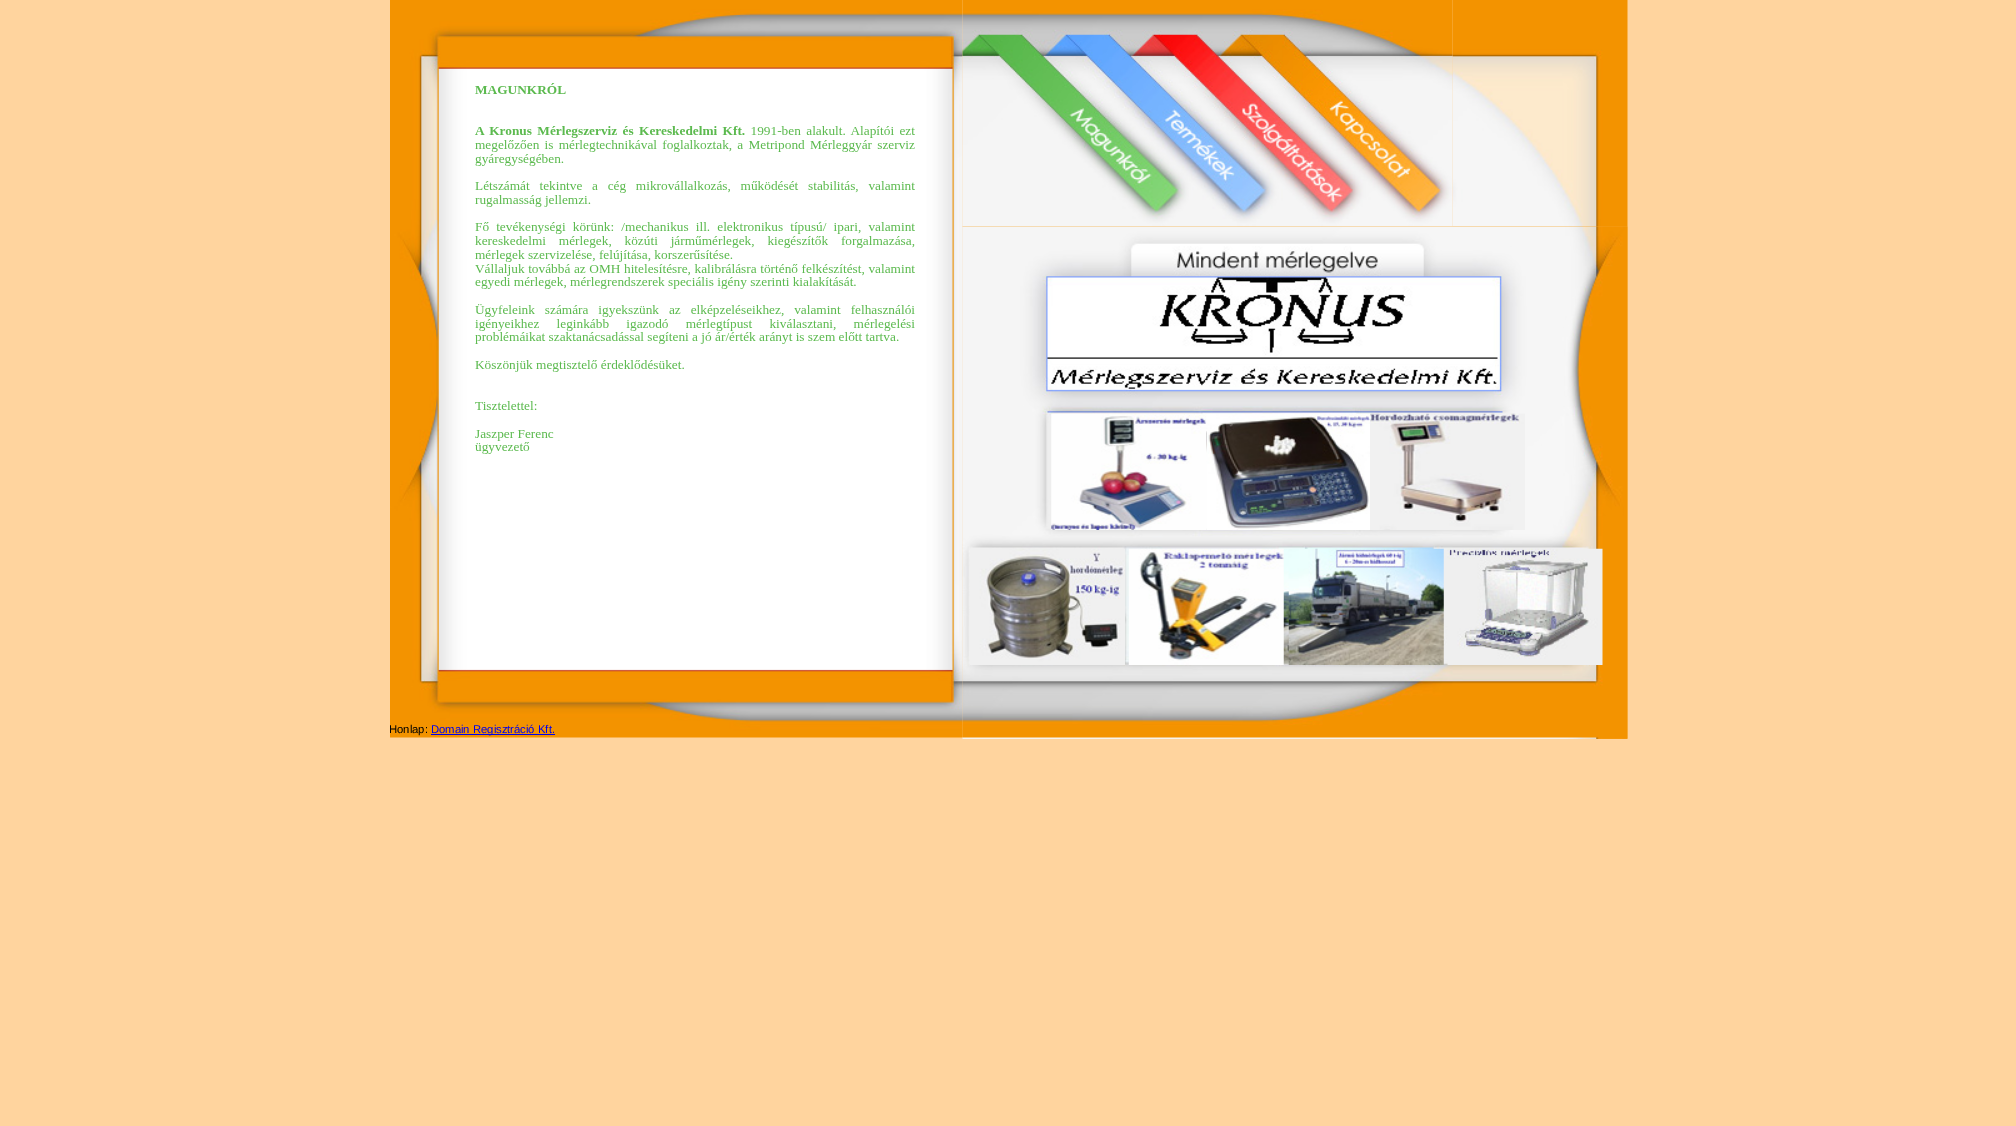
%!PS
<< /PageSize [2016 1126] >> setpagedevice
/rgb { dup -16 bitshift 255 div exch dup -8 bitshift 255 and 255 div exch 255 and 255 div setrgbcolor } def
/font { [ exch dup neg 0 0 3 -1 roll 0 0 ] selectfont } def
/text { moveto show } def
/picture { 5 dict begin { /h /w /y /x /name } { exch def } forall
  gsave x y translate w h scale
  w h 8 [w 0 0 h 0 0] name (r) file false 3 colorimage grestore end } def
0 1126 translate 1 -1 scale
4 setmiterlimit
/s1 { /LiberationSans-Regular 11.25 font 16#000000 rgb } def
/s2 { /LiberationSans-Regular 11.25 font 16#0000EE rgb } def
16#FFD49E rgb
0 0 2016 1126 rectfill
(pic2.raw) 1452 0 176 227 picture
(pic3.raw) 390 0 573 738 picture
(pic5.raw) 962 226 666 513 picture
(pic1.raw) 962 0 491 227 picture
(pic4.raw) 475 83 440 371 picture
s1
(Honlap:) 389 733 text
16#0000EE rgb
431 734 124 1 rectfill
(Domain Regisztráció Kft.) 431 733 text
(pic6.raw) 962 226 666 513 picture
showpage
